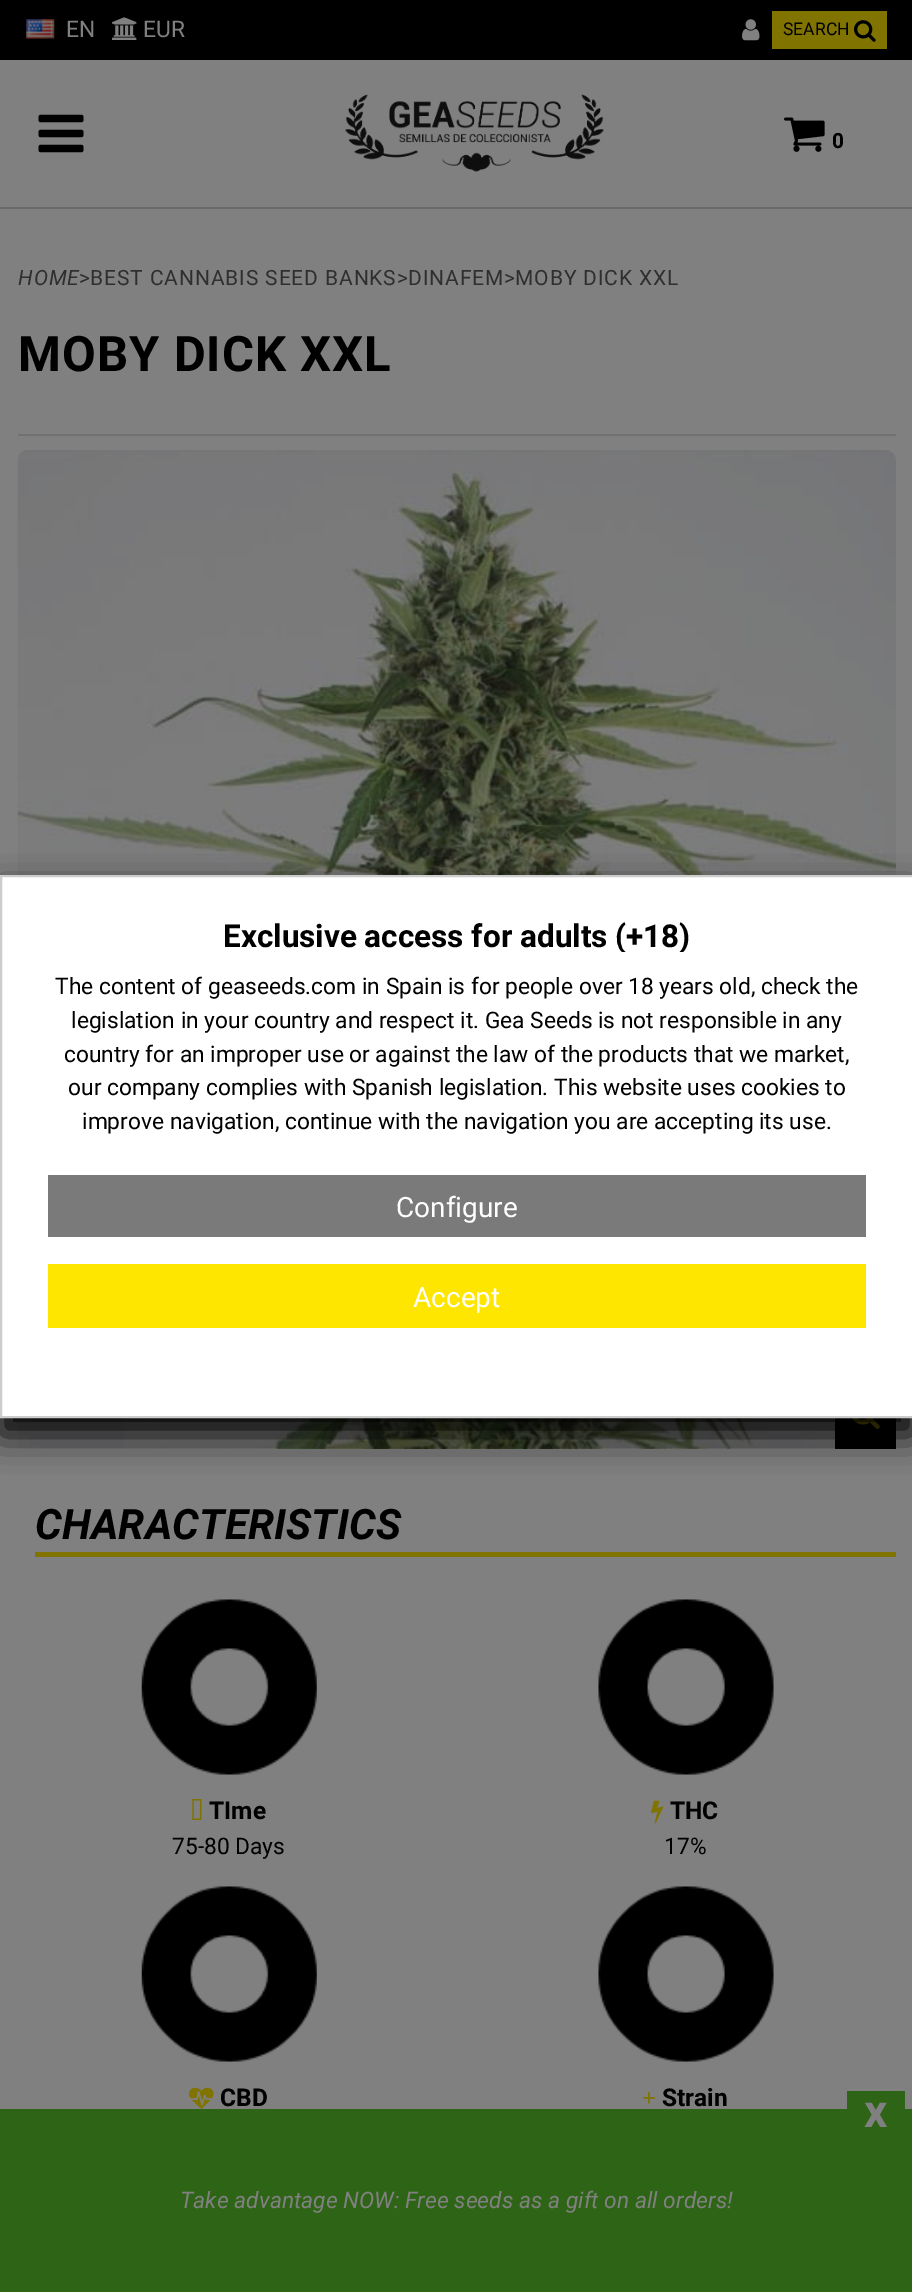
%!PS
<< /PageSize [912 2292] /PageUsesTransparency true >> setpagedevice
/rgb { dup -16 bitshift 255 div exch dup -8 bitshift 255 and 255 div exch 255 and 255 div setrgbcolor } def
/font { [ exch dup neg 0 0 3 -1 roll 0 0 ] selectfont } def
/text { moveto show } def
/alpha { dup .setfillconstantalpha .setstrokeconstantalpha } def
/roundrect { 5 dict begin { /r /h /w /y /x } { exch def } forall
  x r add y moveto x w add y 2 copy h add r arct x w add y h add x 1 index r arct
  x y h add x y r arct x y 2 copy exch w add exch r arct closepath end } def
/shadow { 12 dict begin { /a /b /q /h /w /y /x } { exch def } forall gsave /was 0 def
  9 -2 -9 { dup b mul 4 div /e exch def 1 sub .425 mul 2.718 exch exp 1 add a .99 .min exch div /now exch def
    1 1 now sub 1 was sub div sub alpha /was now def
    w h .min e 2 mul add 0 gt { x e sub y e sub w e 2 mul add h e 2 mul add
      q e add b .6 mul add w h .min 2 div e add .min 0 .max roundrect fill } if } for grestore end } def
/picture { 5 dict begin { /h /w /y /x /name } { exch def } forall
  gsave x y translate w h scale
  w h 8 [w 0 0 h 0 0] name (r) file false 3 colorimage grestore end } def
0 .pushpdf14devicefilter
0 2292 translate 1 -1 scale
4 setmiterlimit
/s1 { /Roboto-Regular 22.75 font 16#808080 rgb } def
/s2 { /Roboto-Regular 17.5 font 16#000000 rgb } def
/s3 { /Roboto-Bold 21 font 16#000000 rgb } def
/s4 { /Roboto-Regular 21 font 16#2F2F2F rgb } def
/s5 { /Roboto-BoldItalic 42 font 16#000000 rgb } def
/s6 { /Roboto-Bold 24.5 font 16#000000 rgb } def
/s7 { /Roboto-Regular 22.75 font 16#000000 rgb } def
/s8 { /LiberationSerif-Bold 24.5 font 16#807300 rgb } def
/s9 { /Roboto-Bold 46 font 16#808080 rgb } def
/s10 { /Roboto-Italic 22.75 font 16#808080 rgb } def
/s11 { /Roboto-Bold 31.5 font 16#000000 rgb } def
/s12 { /Roboto-Regular 28 font 16#FFFFFF rgb } def
16#808080 rgb
0 0 912 2292 rectfill
16#000000 rgb
0 0 912 60 rectfill
(pic1.raw) 26 19 29 20 picture
s1
(EN) 66 37 text
(pic2.raw) 112 17 25 23 picture
(EUR) 143 37 text
(pic3.raw) 742 19 18 22 picture
16#807300 rgb
772 11 115 38 rectfill
s2
(SEARCH) 783 35 text
(pic4.raw) 854 20 22 22 picture
16#6A6A6A rgb
0 207 912 2 rectfill
(pic5.raw) 38 114 46 39 picture
(pic6.raw) 345 94 259 78 picture
(pic7.raw) 784 117 41 35 picture
s3
(0) 832 148 text
/Roboto-Italic 21 font
16#2F2F2F rgb
18 285 moveto 0.9 0 (HOME) ashow
s4
(>) 79 285 text
90 285 moveto 0.9 0 (BEST CANNABIS SEED BANKS) ashow
(>) 397 285 text
408 285 moveto 0.9 0 (DINAFEM) ashow
(>) 504 285 text
515 285 moveto 0.9 0 (MOBY DICK XXL) ashow
16#717171 rgb
18 434 878 2 rectfill
/Roboto-Bold 49 font
16#000000 rgb
18 371 moveto 1 0 (MOBY DICK XXL) ashow
(pic8.raw) 17 450 879 999 picture
835 1418 61 31 rectfill
(pic9.raw) 852 1418 28 11 picture
16#807300 rgb
35 1552 861 5 rectfill
s5
(CHARACTERISTICS) 35 1539 text
(pic10.raw) 141 1599 176 176 picture
(pic11.raw) 192 1799 10 21 picture
s6
(TIme) 209 1819 text
s7
(75-80 Days) 172 1854 text
(pic12.raw) 598 1599 176 176 picture
(pic13.raw) 651 1800 13 24 picture
s6
(THC) 670 1819 text
s7
(17%) 664 1854 text
(pic10.raw) 141 1886 176 176 picture
(pic14.raw) 189 2087 25 22 picture
s6
(CBD) 220 2106 text
(pic12.raw) 598 1886 176 176 picture
s8
(+) 642 2106 text
s6
(Strain) 662 2106 text
16#2E6415 rgb
0 2109 912 183 rectfill
847 2091 58 18 rectfill
s9
(x) 864 2127 text
s10
(Take advantage NOW: Free seeds as a gift on all orders!) 180 2208 text
16#000000 rgb
0 893 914 542 0 17.5 1 shadow
16#FFFFFF rgb
1 876 moveto 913 876 lineto 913 1417 lineto 1 1417 lineto closepath gsave fill grestore
16#CCCCCC rgb
2 setlinewidth
stroke
s11
(Exclusive access for adults) 223 947 text
gsave
46 919 822 33 rectclip
(\(+18\)) 615 947 text
grestore
s7
(The content of geaseeds.com in Spain is for people over 18 years old, check the) 55 994 text
(legislation in your country and respect it. Gea Seeds is not responsible in any) 71 1028 text
(country for an improper use or against the law of the products that we market,) 64 1062 text
(our company complies with Spanish legislation. This website uses cookies to) 68 1095 text
(improve navigation, continue with the navigation you are accepting its use.) 82 1129 text
16#7A7A7A rgb
48 1175 818 62 rectfill
s12
(Configure) 396 1217 text
16#FFE600 rgb
48 1264 818 64 rectfill
s12
(Accept) 413 1307 text
.poppdf14devicefilter showpage
